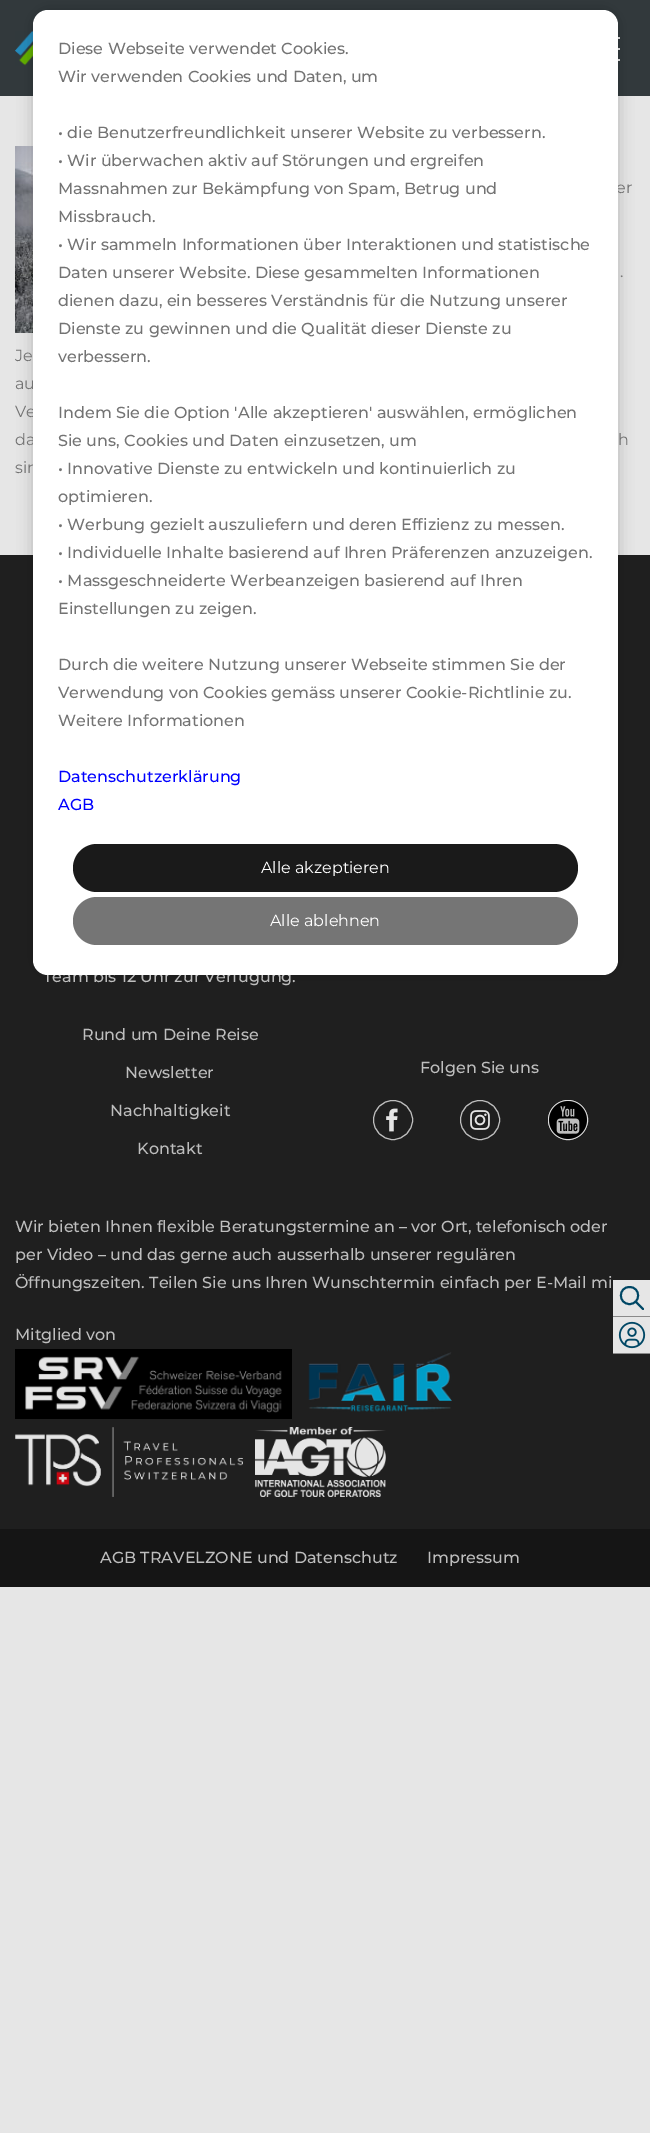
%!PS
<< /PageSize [650 2133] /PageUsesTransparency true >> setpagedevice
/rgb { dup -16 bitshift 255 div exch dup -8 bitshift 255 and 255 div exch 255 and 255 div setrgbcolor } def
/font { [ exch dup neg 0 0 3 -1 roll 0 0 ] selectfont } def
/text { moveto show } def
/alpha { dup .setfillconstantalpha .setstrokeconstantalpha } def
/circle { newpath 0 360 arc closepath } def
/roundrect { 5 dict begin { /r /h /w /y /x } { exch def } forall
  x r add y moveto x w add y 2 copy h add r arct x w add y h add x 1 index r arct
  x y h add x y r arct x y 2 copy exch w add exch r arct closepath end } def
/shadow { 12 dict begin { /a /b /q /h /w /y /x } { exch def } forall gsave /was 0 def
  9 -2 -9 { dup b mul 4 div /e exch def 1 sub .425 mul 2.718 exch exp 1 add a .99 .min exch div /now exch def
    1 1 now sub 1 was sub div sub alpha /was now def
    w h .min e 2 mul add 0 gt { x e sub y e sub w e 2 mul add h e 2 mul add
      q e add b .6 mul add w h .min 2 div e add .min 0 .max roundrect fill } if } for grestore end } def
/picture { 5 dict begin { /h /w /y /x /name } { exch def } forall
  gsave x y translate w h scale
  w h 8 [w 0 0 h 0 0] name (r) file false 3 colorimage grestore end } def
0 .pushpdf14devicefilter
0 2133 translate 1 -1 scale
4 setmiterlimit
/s1 { /Montserrat-Medium 16 font 16#BEBEBE rgb } def
/s2 { /Montserrat-Regular 16 font 16#737373 rgb } def
/s3 { /Montserrat-Medium 16 font 16#737373 rgb } def
/s4 { /Montserrat-Medium 16 font 16#0000FF rgb } def
/s5 { /Montserrat-Regular 16 font 16#FFFFFF rgb } def
16#E6E6E6 rgb
0 0 650 2133 rectfill
16#32393C rgb
0 0 650 96 rectfill
(pic1.raw) 15 31 18 35 picture
16#E6E6E6 rgb
618 37 2 2 rectfill
618 48 2 2 rectfill
618 59 2 2 rectfill
16#1F1F1F rgb
0 555 650 974 rectfill
(pic9.raw) 15 146 18 187 picture
16#000000 rgb
33 10 585 965 15 7.5 0.2 shadow
s1
(Team bis 12 Uhr zur Verfügung.) 43 982 text
s2
(er) 616 193 text
(au) 15 389 text
(Ve) 15 417 text
(da) 15 445 text
(sin) 15 473 text
16#FFFFFF rgb
33 10 585 965 15 roundrect fill
s3
(Diese Webseite verwendet Cookies.) 58 54 text
(Wir verwenden Cookies und Daten, um) 58 82 text
(• die Benutzerfreundlichkeit unserer Website zu verbessern.) 58 138 text
(• Wir überwachen aktiv auf Störungen und ergreifen) 58 166 text
(Massnahmen zur Bekämpfung von Spam, Betrug und) 58 194 text
(Missbrauch.) 58 222 text
(• Wir sammeln Informationen über Interaktionen und statistische) 58 250 text
(Daten unserer Website. Diese gesammelten Informationen) 58 278 text
(dienen dazu, ein besseres Verständnis für die Nutzung unserer) 58 306 text
(Dienste zu gewinnen und die Qualität dieser Dienste zu) 58 334 text
(verbessern.) 58 362 text
(Indem Sie die Option 'Alle akzeptieren' auswählen, ermöglichen) 58 418 text
(Sie uns, Cookies und Daten einzusetzen, um) 58 446 text
(• Innovative Dienste zu entwickeln und kontinuierlich zu) 58 474 text
(optimieren.) 58 502 text
(• Werbung gezielt auszuliefern und deren Effizienz zu messen.) 58 530 text
(• Individuelle Inhalte basierend auf Ihren Präferenzen anzuzeigen.) 58 558 text
(• Massgeschneiderte Werbeanzeigen basierend auf Ihren) 58 586 text
(Einstellungen zu zeigen.) 58 614 text
(Durch die weitere Nutzung unserer Webseite stimmen Sie der) 58 670 text
(Verwendung von Cookies gemäss unserer Cookie-Richtlinie zu.) 58 698 text
(Weitere Informationen) 58 726 text
s4
(Datenschutzerklärung) 58 782 text
(AGB) 58 810 text
16#1A1A1A rgb
73 844 505 48 24 roundrect fill
s5
(Alle akzeptieren) 261 873 text
16#757575 rgb
73 897 505 48 24 roundrect fill
s5
(Alle ablehnen) 270 926 text
s1
(Rund um Deine Reise) 82 1040 text
(Newsletter) 125 1078 text
(Nachhaltigkeit) 110 1116 text
(Kontakt) 137 1154 text
(Folgen Sie uns) 420 1073 text
393 1120 19.5 circle stroke
(pic2.raw) 386 1108 12 24 picture
480 1120 19.5 circle stroke
(pic3.raw) 470 1110 20 20 picture
568 1120 20 circle fill
0.8 alpha
16#E6E6E6 rgb
568 1120 19.5 circle stroke
1 alpha
(pic4.raw) 549 1101 38 38 picture
s1
(Wir bieten Ihnen flexible Beratungstermine an – vor Ort, telefonisch oder) 15 1232 text
(per Video – und das gerne auch ausserhalb unserer regulären) 15 1260 text
(Öffnungszeiten. Teilen Sie uns Ihren Wunschtermin einfach per E-Mail mi) 15 1288 text
(Mitglied von) 15 1340 text
(pic5.raw) 15 1349 277 70 picture
(pic6.raw) 308 1352 144 60 picture
(pic7.raw) 15 1427 228 70 picture
(pic8.raw) 255 1427 131 70 picture
16#151515 rgb
0 1529 650 58 rectfill
s1
(AGB TRAVELZONE und Datenschutz) 100 1563 text
(Impressum) 427 1563 text
s2
(.) 620 277 text
(Je) 15 361 text
(h) 618 445 text
16#E6E6E6 rgb
613 1280 37 36 rectfill
16#8A8A8A rgb
613 1316 37 1 rectfill
16#004765 rgb
1.9 setlinewidth
1 setlinecap
1 setlinejoin
629.5 1304 moveto 641 1304 641 1287 629.5 1287 curveto 618 1287 618 1304 629.5 1304 curveto closepath 643 1309 moveto 635.5 1301.5 lineto stroke
16#E6E6E6 rgb
613 1317 37 36 rectfill
16#8A8A8A rgb
613 1353 37 1 rectfill
(pic10.raw) 618 1321 28 28 picture
.poppdf14devicefilter showpage
